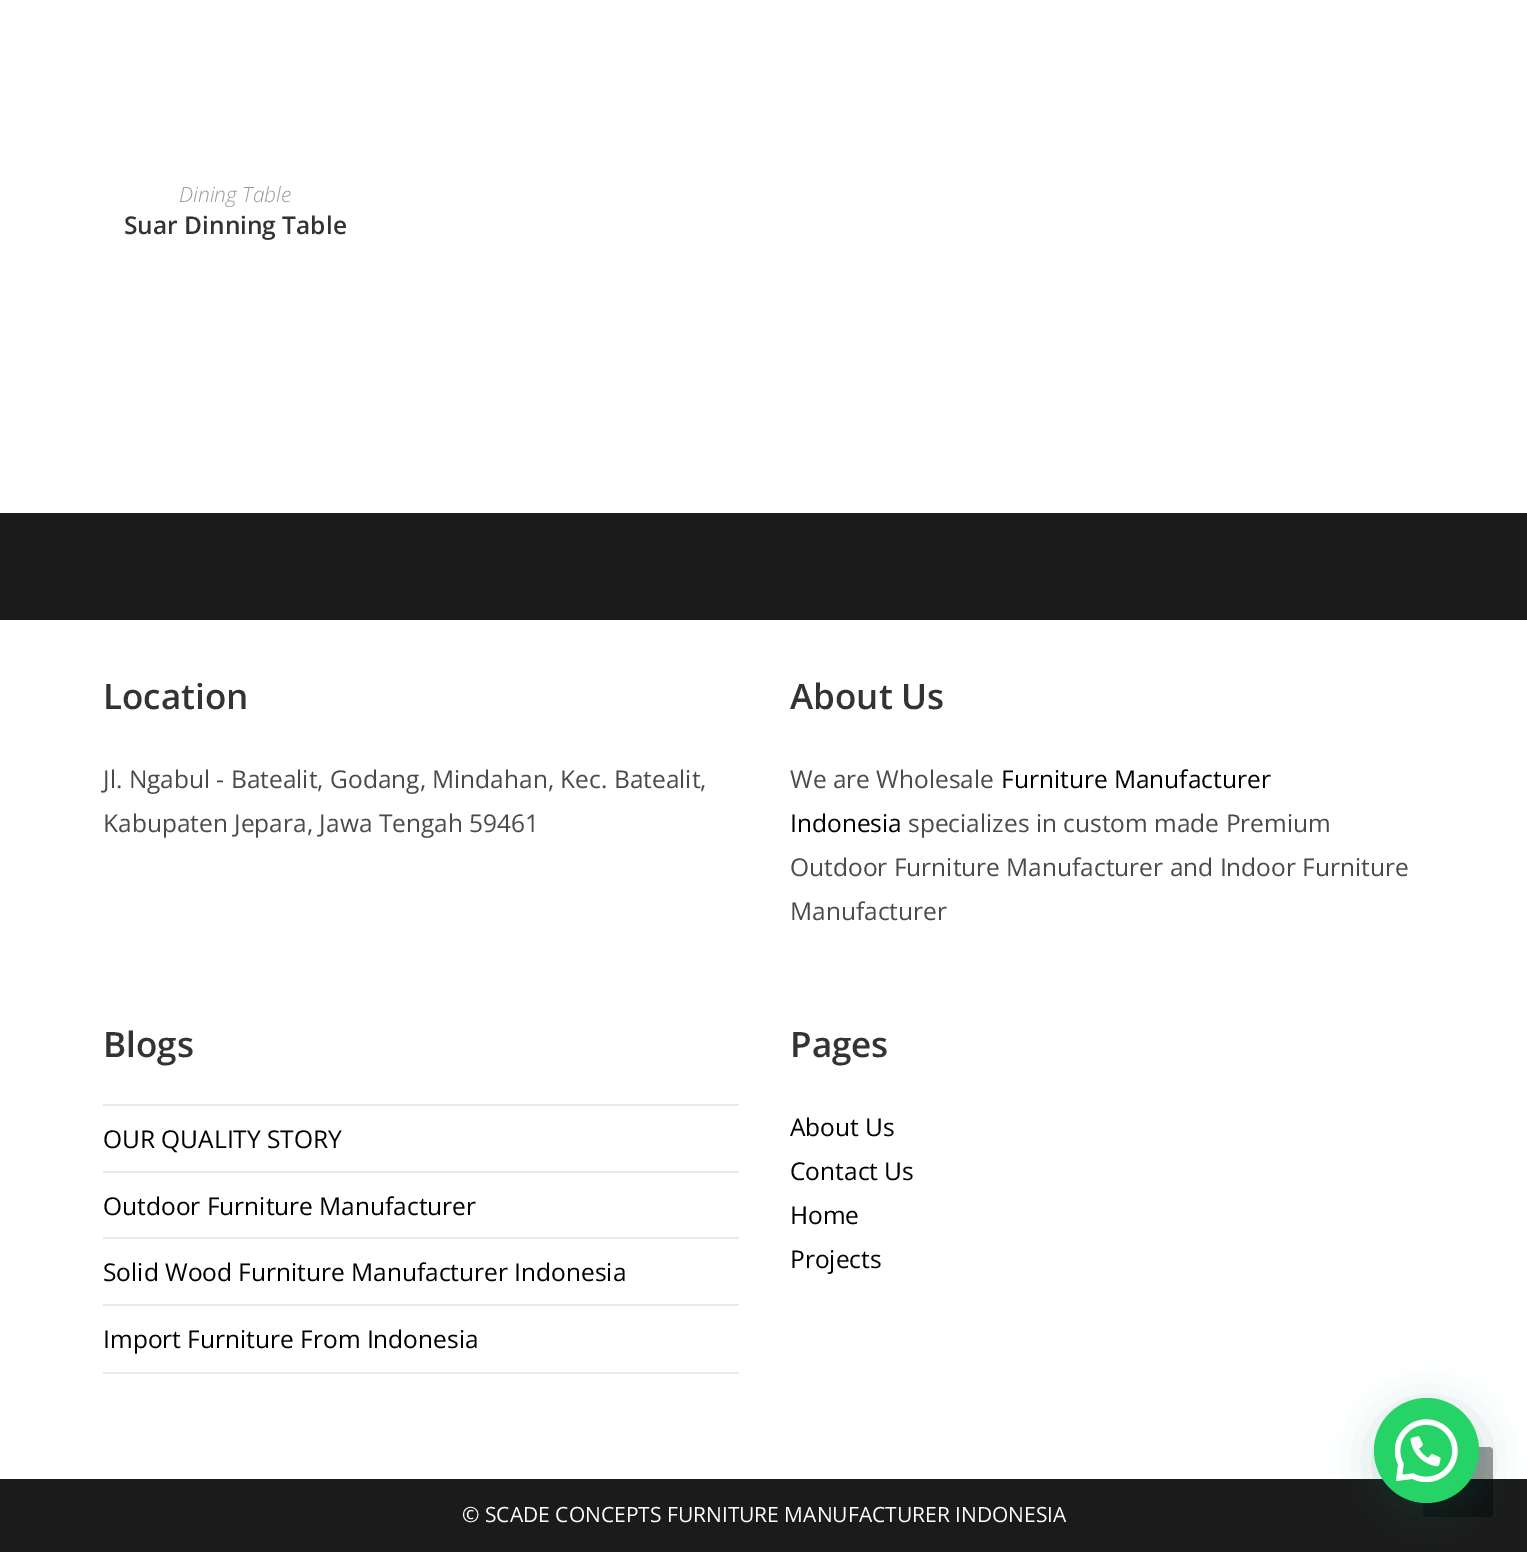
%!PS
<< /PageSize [1527 1552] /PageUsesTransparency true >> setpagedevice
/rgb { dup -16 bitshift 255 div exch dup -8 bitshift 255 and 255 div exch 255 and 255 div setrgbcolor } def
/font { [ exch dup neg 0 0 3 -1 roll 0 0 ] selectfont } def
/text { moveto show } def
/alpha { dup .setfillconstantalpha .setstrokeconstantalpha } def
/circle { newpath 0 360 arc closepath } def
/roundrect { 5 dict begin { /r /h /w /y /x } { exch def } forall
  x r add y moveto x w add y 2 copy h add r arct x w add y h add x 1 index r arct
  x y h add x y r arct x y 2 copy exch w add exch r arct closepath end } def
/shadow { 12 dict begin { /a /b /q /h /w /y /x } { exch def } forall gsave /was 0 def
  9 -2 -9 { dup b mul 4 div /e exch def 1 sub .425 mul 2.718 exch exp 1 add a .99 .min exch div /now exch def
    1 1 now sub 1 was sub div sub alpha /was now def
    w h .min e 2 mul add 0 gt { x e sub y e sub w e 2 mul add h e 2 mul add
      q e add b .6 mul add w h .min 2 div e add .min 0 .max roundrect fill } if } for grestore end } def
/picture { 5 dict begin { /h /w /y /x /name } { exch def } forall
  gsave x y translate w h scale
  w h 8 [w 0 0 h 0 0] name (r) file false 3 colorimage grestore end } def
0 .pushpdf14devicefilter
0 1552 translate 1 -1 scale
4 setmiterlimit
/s1 { /OpenSans-LightItalic 21 font 16#999999 rgb } def
/s2 { /OpenSans-SemiBold 24.5 font 16#333333 rgb } def
/s3 { /OpenSans-SemiBold 35 font 16#333333 rgb } def
/s4 { /OpenSans-Regular 24.5 font 16#4A4A4A rgb } def
/s5 { /OpenSans-Regular 24.5 font 16#000000 rgb } def
/s6 { /OpenSans-Regular 21 font 16#FFFFFF rgb } def
16#FFFFFF rgb
0 0 1527 1552 rectfill
s1
(Dining Table) 179 202 text
s2
(Suar Dinning Table) 124 234 text
16#1B1B1B rgb
0 513 1527 107 rectfill
s3
(Location) 103 709 text
s4
(Jl. Ngabul - Batealit, Godang, Mindahan, Kec. Batealit,) 103 788 text
(Kabupaten Jepara, Jawa Tengah 59461) 103 832 text
s3
(About Us) 790 709 text
s4
(We are Wholesale) 790 788 text
s5
(Furniture Manufacturer) 1001 788 text
(Indonesia) 790 832 text
s4
(specializes in custom made Premium) 908 832 text
(Outdoor Furniture Manufacturer and Indoor Furniture) 790 876 text
(Manufacturer) 790 920 text
s3
(Blogs) 103 1057 text
16#E9E9E9 rgb
103 1104 636 2 rectfill
103 1171 636 2 rectfill
s5
(OUR QUALITY STORY) 103 1148 text
16#E9E9E9 rgb
103 1237 636 2 rectfill
s5
(Outdoor Furniture Manufacturer) 103 1215 text
16#E9E9E9 rgb
103 1304 636 2 rectfill
s5
(Solid Wood Furniture Manufacturer Indonesia) 103 1281 text
16#E9E9E9 rgb
103 1372 636 2 rectfill
s5
(Import Furniture From Indonesia) 103 1348 text
s3
(Pages) 790 1057 text
s5
(About Us) 790 1136 text
(Contact Us) 790 1180 text
(Home) 790 1224 text
(Projects) 790 1268 text
16#1B1B1B rgb
0 1479 1527 73 rectfill
s6
(© SCADE CONCEPTS FURNITURE MANUFACTURER INDONESIA) 462 1522 text
0.4 alpha
16#000000 rgb
1423 1447 70 70 4 roundrect fill
1 alpha
16#075E54 rgb
1376 1409 105 105 52.5 21 0.24 shadow
16#25D366 rgb
1426.5 1450.5 52.5 circle fill
(pic1.raw) 1395 1419 63 63 picture
.poppdf14devicefilter showpage
